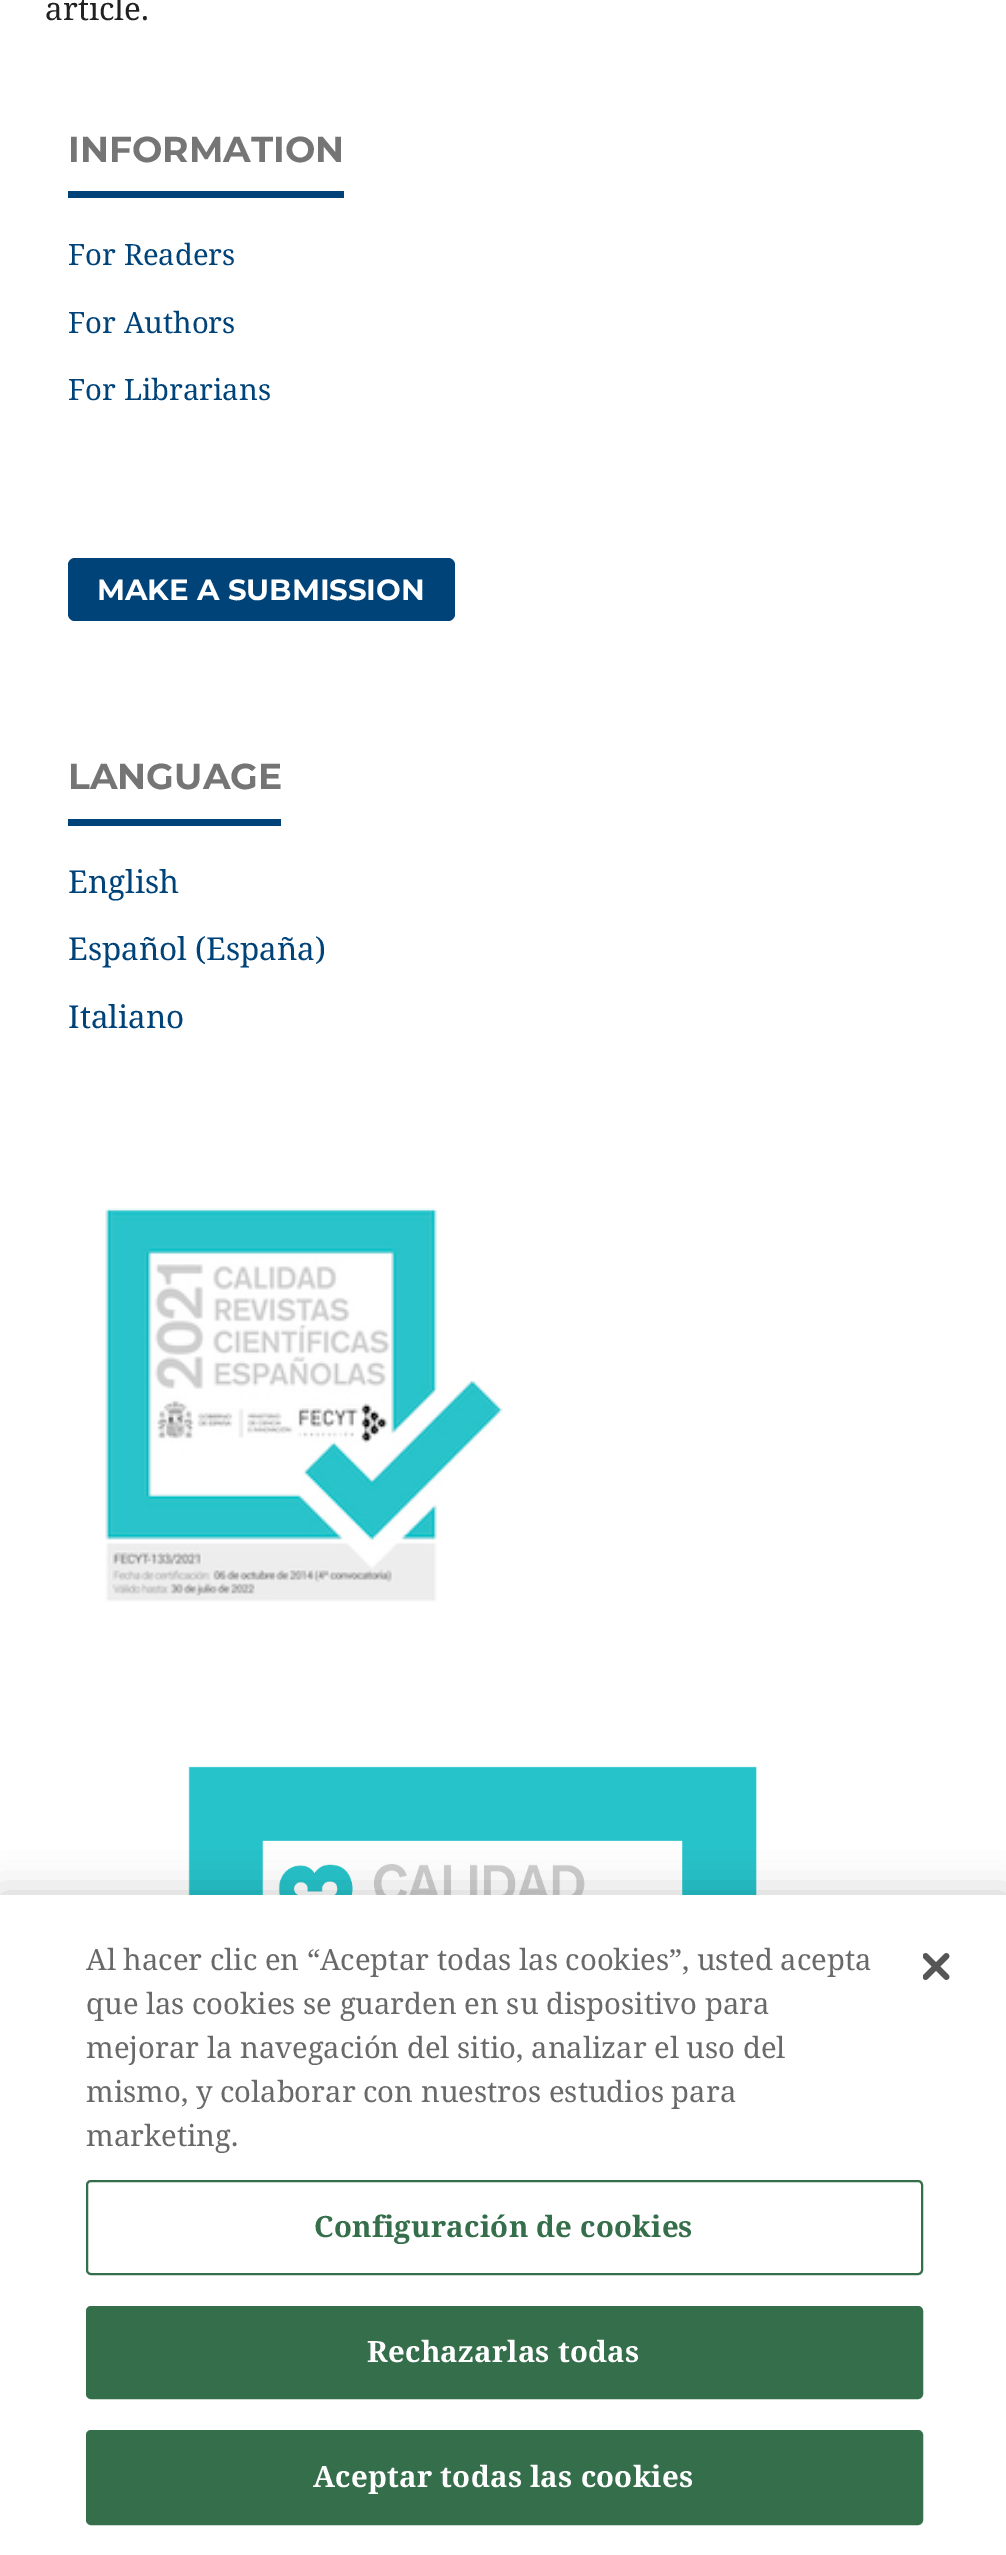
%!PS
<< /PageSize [1006 2555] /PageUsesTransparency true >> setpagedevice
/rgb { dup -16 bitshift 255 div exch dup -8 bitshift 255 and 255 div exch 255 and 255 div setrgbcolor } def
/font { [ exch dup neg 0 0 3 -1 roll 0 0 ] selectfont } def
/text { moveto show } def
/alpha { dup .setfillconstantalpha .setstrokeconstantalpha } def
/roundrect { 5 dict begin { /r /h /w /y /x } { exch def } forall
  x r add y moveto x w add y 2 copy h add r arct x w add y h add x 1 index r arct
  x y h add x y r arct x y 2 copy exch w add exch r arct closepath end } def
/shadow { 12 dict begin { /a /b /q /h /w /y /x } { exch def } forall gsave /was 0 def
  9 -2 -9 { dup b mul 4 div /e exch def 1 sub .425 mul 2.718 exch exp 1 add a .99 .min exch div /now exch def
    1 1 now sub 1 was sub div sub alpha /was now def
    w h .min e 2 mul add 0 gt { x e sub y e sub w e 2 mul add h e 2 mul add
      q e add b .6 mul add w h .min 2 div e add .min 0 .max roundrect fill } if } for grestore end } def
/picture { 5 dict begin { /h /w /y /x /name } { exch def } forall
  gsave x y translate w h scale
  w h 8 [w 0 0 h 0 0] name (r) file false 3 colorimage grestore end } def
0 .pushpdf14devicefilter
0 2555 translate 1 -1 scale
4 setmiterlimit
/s1 { /NotoSerif-Regular 31.5 font 16#212121 rgb } def
/s2 { /Montserrat-Bold 36 font 16#757575 rgb } def
/s3 { /NotoSerif-Regular 29.25 font 16#004379 rgb } def
/s4 { /Montserrat-Bold 29.25 font 16#FFFFFF rgb } def
/s5 { /NotoSerif-Regular 31.5 font 16#004379 rgb } def
/s6 { /NotoSerif-Regular 29.25 font 16#696969 rgb } def
16#FFFFFF rgb
0 0 1006 2555 rectfill
s1
(article.) 45 20 text
16#004379 rgb
68 191 276 7 rectfill
s2
(INFORMATION) 68 162 text
s3
(For Readers) 68 265 text
(For Authors) 68 333 text
(For Librarians) 68 400 text
68 558 387 63 7 roundrect fill
s4
(MAKE A SUBMISSION) 97 600 text
16#004379 rgb
68 819 213 7 rectfill
s2
(LANGUAGE) 68 789 text
s5
(English) 68 893 text
(Español \(España\)) 68 960 text
(Italiano) 68 1028 text
(pic1.raw) 105 1208 398 394 picture
(pic2.raw) 188 1766 683 129 picture
16#000000 rgb
0 1895 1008 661 0 20 0.2 shadow
16#FFFFFF rgb
0 1895 1006 660 rectfill
s6
(Al hacer clic en “Aceptar todas las cookies”, usted acepta) 86 1970 text
(que las cookies se guarden en su dispositivo para) 86 2014 text
(mejorar la navegación del sitio, analizar el uso del) 86 2058 text
(mismo, y colaborar con nuestros estudios para) 86 2102 text
(marketing.) 86 2146 text
16#346E4A rgb
2 setlinewidth
87 2181 835 93 4 roundrect stroke
/NotoSerif-Bold 29.25 font
314 2237 moveto 0.25 0 (Configuración de cookies) ashow
87 2307 835 91 4 roundrect gsave fill grestore
stroke
16#FFFFFF rgb
367 2362 moveto 0.25 0 (Rechazarlas todas) ashow
16#346E4A rgb
87 2431 835 93 4 roundrect gsave fill grestore
stroke
16#FFFFFF rgb
313 2487 moveto 0.25 0 (Aceptar todas las cookies) ashow
(pic3.raw) 923 1953 27 27 picture
.poppdf14devicefilter showpage
